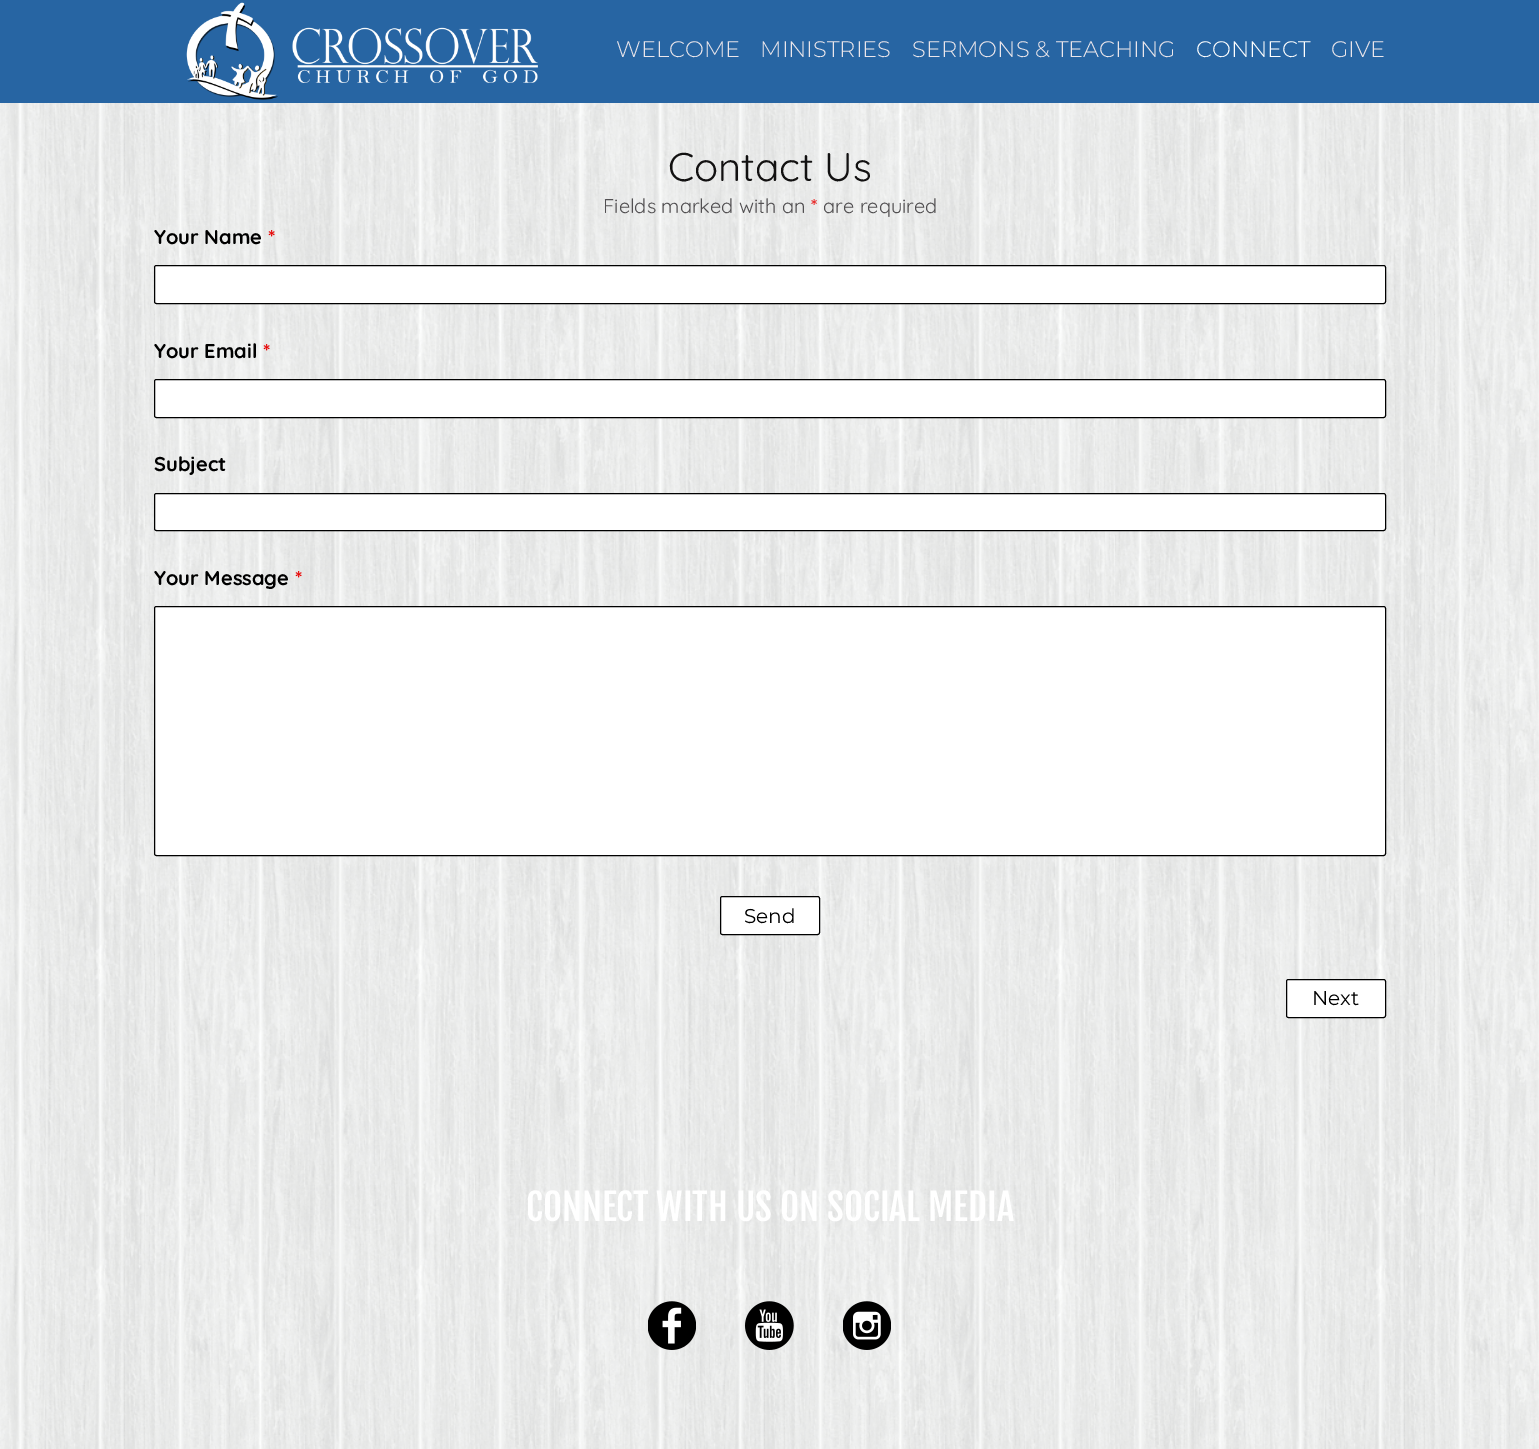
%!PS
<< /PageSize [1539 1449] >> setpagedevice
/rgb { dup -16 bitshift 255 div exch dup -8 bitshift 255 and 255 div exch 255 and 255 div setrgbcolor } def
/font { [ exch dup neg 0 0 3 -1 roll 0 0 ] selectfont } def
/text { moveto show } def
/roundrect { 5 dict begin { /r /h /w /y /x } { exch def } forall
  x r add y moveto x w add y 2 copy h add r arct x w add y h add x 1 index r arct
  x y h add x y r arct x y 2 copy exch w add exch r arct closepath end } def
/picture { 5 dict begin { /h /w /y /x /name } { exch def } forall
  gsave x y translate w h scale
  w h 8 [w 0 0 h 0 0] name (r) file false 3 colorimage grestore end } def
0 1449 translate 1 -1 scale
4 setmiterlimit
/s1 { /Montserrat-Light 22.5 font 16#EBE6EB rgb } def
/s2 { /Montserrat-Light 22.5 font 16#FFFFFF rgb } def
/s3 { /Quicksand-Regular 40 font 16#121111 rgb } def
/s4 { /Quicksand-Regular 20 font 16#525052 rgb } def
/s5 { /Quicksand-Regular 20 font 16#E80000 rgb } def
/s6 { /Quicksand-Bold 20 font 16#000000 rgb } def
/s7 { /Quicksand-Bold 20 font 16#E80000 rgb } def
/s8 { /Montserrat-Regular 20 font 16#000000 rgb } def
/s9 { /FjallaOne-Regular 36.7 font 16#FFFFFF rgb } def
16#FFFFFF rgb
0 0 1539 1449 rectfill
(pic1.raw) 0 103 1539 1346 picture
16#2765A3 rgb
0 0 1539 103 rectfill
(pic2.raw) 186 2 352 98 picture
s1
(WELCOME) 616 57 text
(MINISTRIES) 760 57 text
(SERMONS & TEACHING) 912 57 text
s2
(CONNECT) 1196 57 text
s1
(GIVE) 1331 57 text
s3
(Contact Us) 668 181 text
s4
(Fields marked with an) 603 213 text
s5
(*) 811 213 text
s4
(are required) 823 213 text
s6
(Your Name) 154 244 text
s7
(*) 268 244 text
16#FFFFFF rgb
154.5 265.5 1231 38 2 roundrect gsave fill grestore
16#000000 rgb
stroke
(Your Email) 154 358 text
s7
(*) 263 358 text
16#FFFFFF rgb
154.5 379.5 1231 38 2 roundrect gsave fill grestore
16#000000 rgb
stroke
(Subject) 154 471 text
16#FFFFFF rgb
154.5 493.5 1231 37 2 roundrect gsave fill grestore
16#000000 rgb
stroke
(Your Message) 154 585 text
s7
(*) 295 585 text
16#FFFFFF rgb
154.5 606.5 1231 249 2 roundrect gsave fill grestore
16#000000 rgb
stroke
16#FFFFFF rgb
720.5 896.5 99 38 2 roundrect gsave fill grestore
16#000000 rgb
stroke
s8
(Send) 744 923 text
16#FFFFFF rgb
1286.5 979.5 99 38 2 roundrect gsave fill grestore
16#000000 rgb
stroke
(Next) 1312 1005 text
s9
(CONNECT WITH US ON SOCIAL MEDIA) 526 1221 text
(pic3.raw) 648 1301 48 49 picture
(pic4.raw) 745 1301 49 49 picture
(pic5.raw) 843 1301 48 49 picture
showpage
